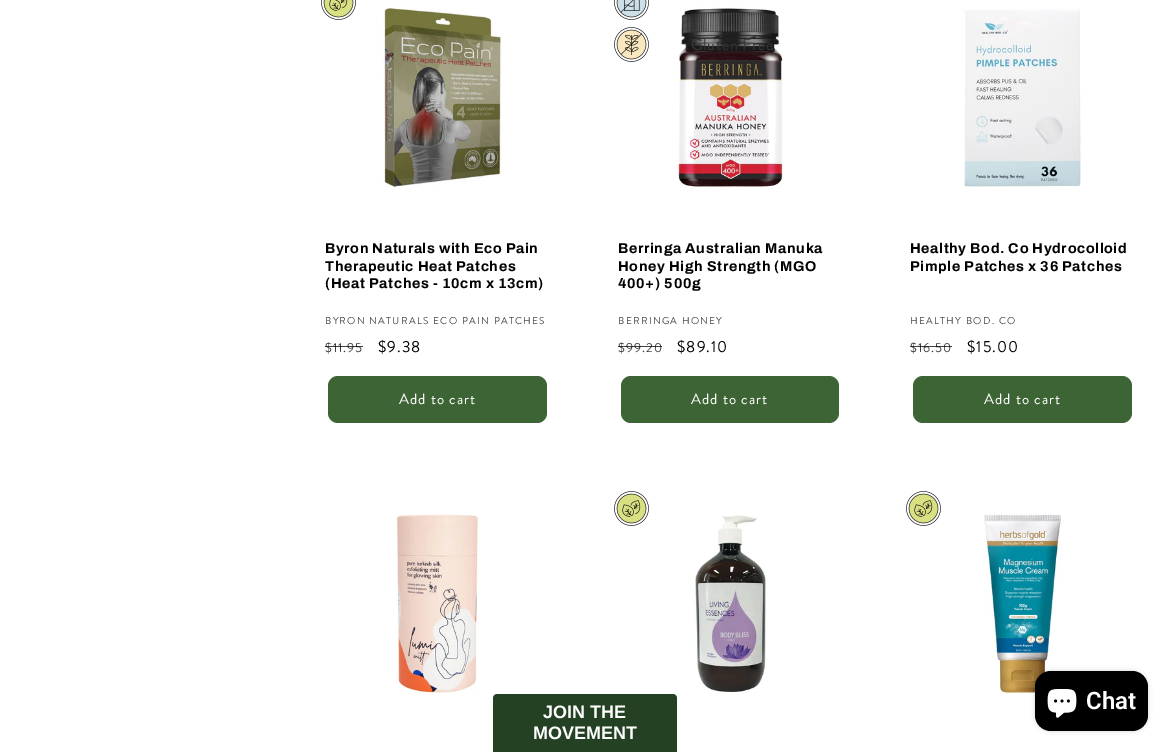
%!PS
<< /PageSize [1170 752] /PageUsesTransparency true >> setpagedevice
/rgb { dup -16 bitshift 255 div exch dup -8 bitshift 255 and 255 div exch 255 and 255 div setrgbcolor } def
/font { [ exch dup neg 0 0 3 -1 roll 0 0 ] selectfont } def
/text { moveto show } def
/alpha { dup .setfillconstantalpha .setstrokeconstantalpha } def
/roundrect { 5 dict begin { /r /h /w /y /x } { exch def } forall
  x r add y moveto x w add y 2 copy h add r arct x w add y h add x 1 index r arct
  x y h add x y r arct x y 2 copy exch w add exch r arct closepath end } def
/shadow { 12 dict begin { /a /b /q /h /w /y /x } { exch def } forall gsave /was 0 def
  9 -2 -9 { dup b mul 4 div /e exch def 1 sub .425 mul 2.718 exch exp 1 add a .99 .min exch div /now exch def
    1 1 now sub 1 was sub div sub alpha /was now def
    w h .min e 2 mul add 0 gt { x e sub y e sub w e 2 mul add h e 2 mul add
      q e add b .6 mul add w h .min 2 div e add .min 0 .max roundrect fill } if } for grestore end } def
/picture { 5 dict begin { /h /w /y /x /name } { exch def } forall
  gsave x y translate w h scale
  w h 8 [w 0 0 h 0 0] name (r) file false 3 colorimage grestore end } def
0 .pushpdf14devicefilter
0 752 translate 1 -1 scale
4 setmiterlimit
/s1 { /Roboto-SemiBold 24 font 16#FFFFFF rgb } def
/s2 { /LiberationSans-Bold 18 font 16#FFFFFF rgb } def
16#FFFFFF rgb
0 0 1170 752 rectfill
(pic2.raw) 331 0 171 188 picture
(pic1.raw) 321 0 35 20 picture
/Archivo-Bold 14.25 font
16#000000 rgb
325 253 moveto 0.65 0 (Byron Naturals with Eco Pain) ashow
325 271 moveto 0.65 0 (Therapeutic Heat Patches) ashow
325 288 moveto 0.65 0 (\(Heat Patches - 10cm x 13cm\)) ashow
/BrandonGrotesque-Regular 10 font
16#4D4D4D rgb
325 324 moveto 1.3 0 (BYRON NATURALS ECO PAIN PATCHES) ashow
/BrandonGrotesque-Regular 13 font
16#404040 rgb
325 352 moveto 1 0 ($11.95) ashow
0.75 alpha
16#000000 rgb
325 346 38 1 rectfill
/BrandonGrotesque-Regular 16 font
1 alpha
378 352 moveto 1 0 ($9.38) ashow
16#3D6435 rgb
328 376 219 47 10 roundrect fill
/BrandonGrotesque-Regular 15 font
16#FFFFFF rgb
399 404 moveto 1 0 (Add to cart) ashow
(pic3.raw) 624 0 159 188 picture
(pic4.raw) 614 0 35 20 picture
(pic5.raw) 614 27 35 35 picture
/BrandonGrotesque-Regular 16 font
16#353535 rgb
691 50 moveto 0.6 0 (Gluten Free) ashow
/Archivo-Bold 14.25 font
16#000000 rgb
618 253 moveto 0.65 0 (Berringa Australian Manuka) ashow
618 271 moveto 0.65 0 (Honey High Strength \(MGO) ashow
618 288 moveto 0.65 0 (400+\) 500g) ashow
/BrandonGrotesque-Regular 10 font
16#4D4D4D rgb
618 324 moveto 1.3 0 (BERRINGA HONEY) ashow
/BrandonGrotesque-Regular 13 font
16#404040 rgb
618 352 moveto 1 0 ($99.20) ashow
0.75 alpha
16#000000 rgb
618 346 44 1 rectfill
/BrandonGrotesque-Regular 16 font
1 alpha
677 352 moveto 1 0 ($89.10) ashow
16#3D6435 rgb
621 376 218 47 10 roundrect fill
/BrandonGrotesque-Regular 15 font
16#FFFFFF rgb
691 404 moveto 1 0 (Add to cart) ashow
(pic6.raw) 916 0 165 187 picture
/Archivo-Bold 14.25 font
16#000000 rgb
910 253 moveto 0.65 0 (Healthy Bod. Co Hydrocolloid) ashow
910 271 moveto 0.65 0 (Pimple Patches x 36 Patches) ashow
/BrandonGrotesque-Regular 10 font
16#4D4D4D rgb
910 324 moveto 1.3 0 (HEALTHY BOD. CO) ashow
/BrandonGrotesque-Regular 13 font
16#404040 rgb
910 352 moveto 1 0 ($16.50) ashow
0.75 alpha
16#000000 rgb
910 346 42 1 rectfill
/BrandonGrotesque-Regular 16 font
1 alpha
967 352 moveto 1 0 ($15.00) ashow
16#3D6435 rgb
913 376 219 47 10 roundrect fill
/BrandonGrotesque-Regular 15 font
16#FFFFFF rgb
984 404 moveto 1 0 (Add to cart) ashow
(pic7.raw) 396 514 85 180 picture
(pic9.raw) 624 500 143 194 picture
(pic8.raw) 614 491 35 35 picture
(pic10.raw) 916 500 145 194 picture
(pic8.raw) 906 491 35 35 picture
16#000000 rgb
1035 671 113 60 16 2.5 0.15 shadow
1035 671 113 60 16 roundrect fill
(pic11.raw) 1047 689 30 29 picture
s1
(Chat) 1086 709 text
16#244223 rgb
497 694 moveto 673 694 lineto 675 694 677 696 677 698 curveto 677 752 lineto 493 752 lineto 493 698 lineto 493 696 495 694 497 694 curveto closepath fill
s2
(JOIN THE) 543 718 text
(MOVEMENT) 533 739 text
.poppdf14devicefilter showpage
